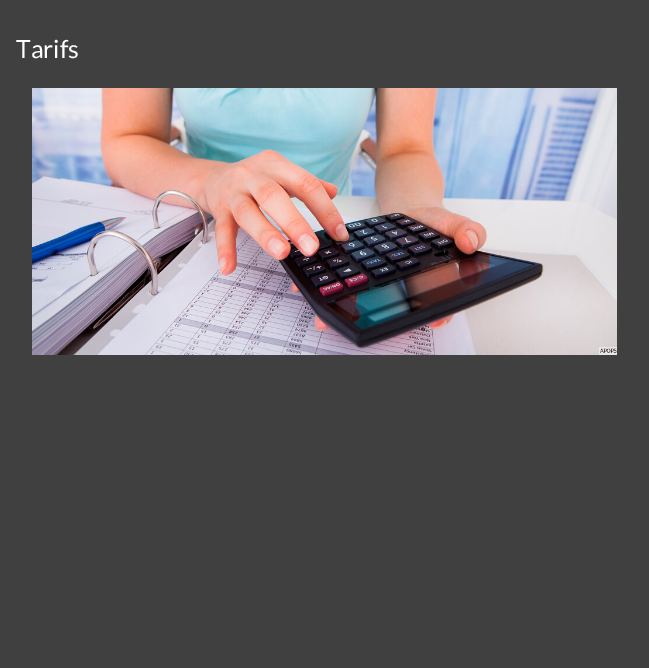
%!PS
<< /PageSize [649 668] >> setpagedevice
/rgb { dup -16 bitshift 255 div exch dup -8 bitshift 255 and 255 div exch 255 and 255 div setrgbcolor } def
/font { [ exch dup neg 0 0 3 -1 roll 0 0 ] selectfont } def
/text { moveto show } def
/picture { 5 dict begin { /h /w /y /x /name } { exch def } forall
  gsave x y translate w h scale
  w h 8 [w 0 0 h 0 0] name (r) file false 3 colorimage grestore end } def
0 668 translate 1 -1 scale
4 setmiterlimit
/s1 { /Lato-Regular 25 font 16#FFFFFF rgb } def
16#404040 rgb
0 0 649 668 rectfill
s1
(Tarifs) 16 58 text
(pic1.raw) 32 88 585 267 picture
showpage
